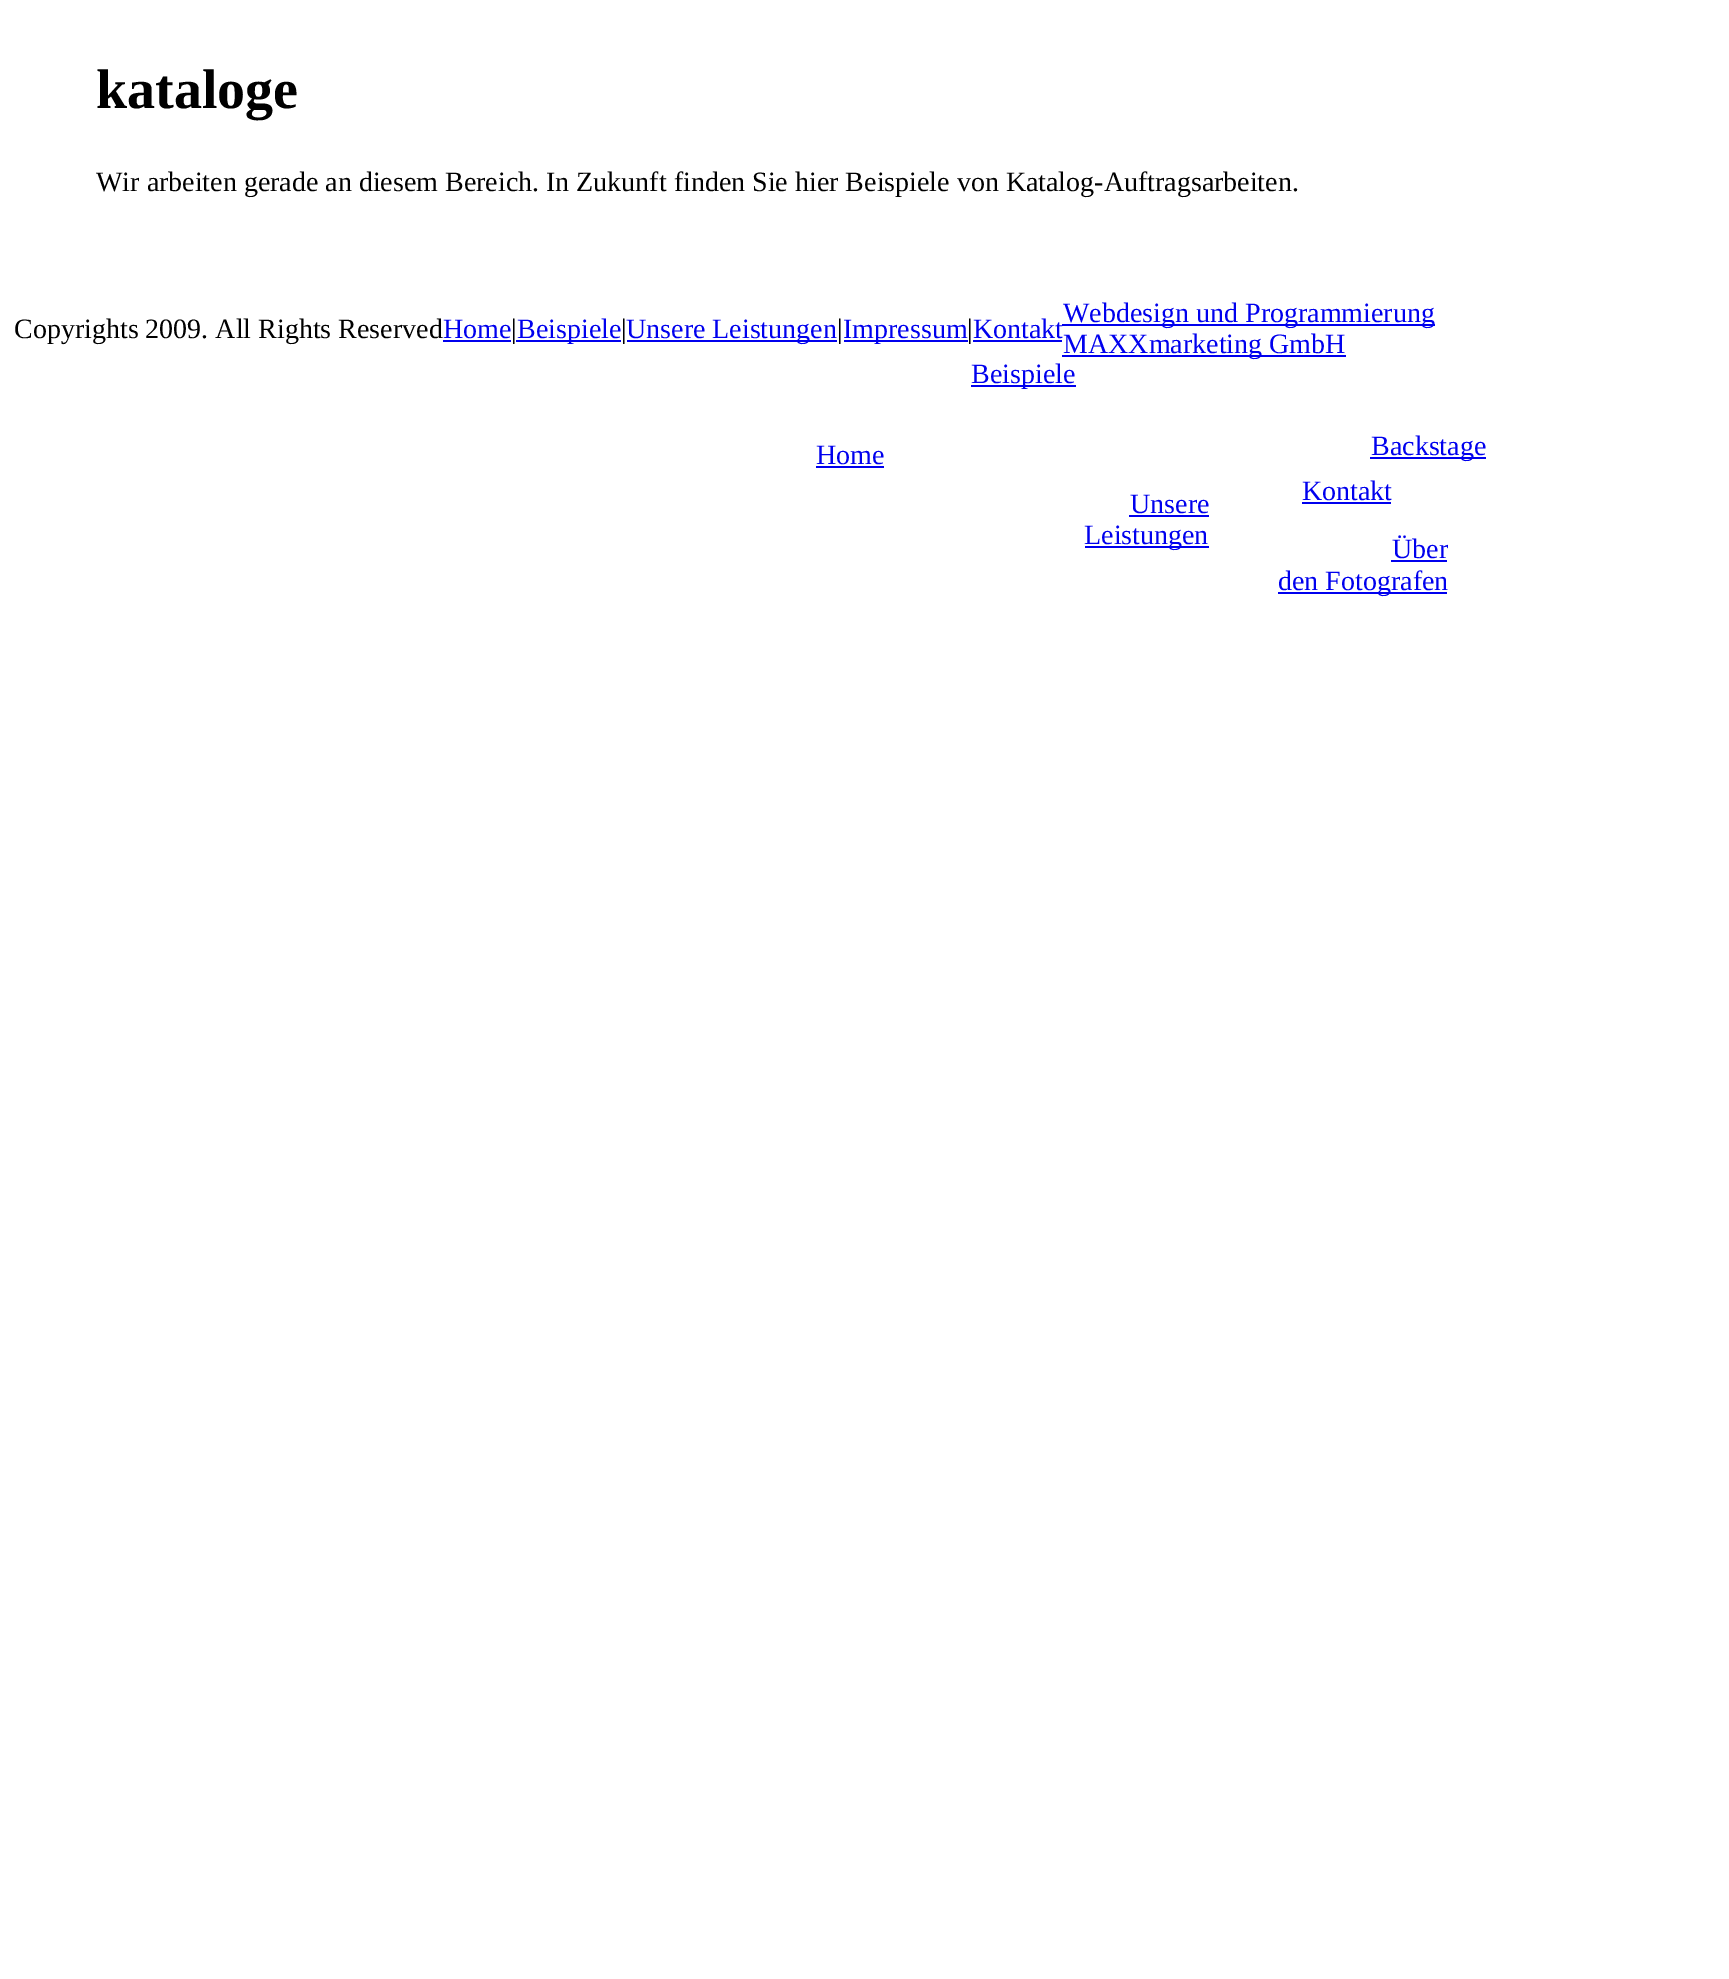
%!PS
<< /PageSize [1729 1979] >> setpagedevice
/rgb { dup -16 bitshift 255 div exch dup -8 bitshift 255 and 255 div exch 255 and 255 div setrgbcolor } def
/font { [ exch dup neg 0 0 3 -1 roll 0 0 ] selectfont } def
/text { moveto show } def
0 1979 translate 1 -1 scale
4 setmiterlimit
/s1 { /LiberationSerif-Bold 56 font 16#000000 rgb } def
/s2 { /LiberationSerif-Regular 28 font 16#000000 rgb } def
/s3 { /LiberationSerif-Regular 28 font 16#0000EE rgb } def
16#FFFFFF rgb
0 0 1729 1979 rectfill
s1
(kataloge) 96 108 text
s2
(Wir arbeiten gerade an diesem Bereich. In Zukunft finden Sie hier Beispiele von Katalog-Auftragsarbeiten.) 96 191 text
(Copyrights 2009. All Rights Reserved) 14 338 text
s3
(Home) 443 338 text
443 340 68 2 rectfill
s2
(|) 511 338 text
16#0000EE rgb
516 340 105 2 rectfill
(Beispiele) 517 338 text
s2
(|) 621 338 text
16#0000EE rgb
627 340 210 2 rectfill
(Unsere Leistungen) 626 338 text
s2
(|) 837 338 text
16#0000EE rgb
844 340 124 2 rectfill
(Impressum) 843 338 text
s2
(|) 967 338 text
s3
(Kontakt) 973 338 text
973 340 89 2 rectfill
1062 324 373 2 rectfill
(Webdesign und Programmierung) 1063 322 text
1062 355 284 2 rectfill
(MAXXmarketing GmbH) 1063 353 text
971 385 105 2 rectfill
(Beispiele) 971 383 text
(Home) 816 464 text
816 466 68 2 rectfill
1370 457 116 2 rectfill
(Backstage) 1371 455 text
(Kontakt) 1302 500 text
1302 502 89 2 rectfill
(Unsere) 1130 513 text
1129 515 80 2 rectfill
1085 546 124 2 rectfill
(Leistungen) 1084 544 text
(Über) 1392 558 text
1391 560 56 2 rectfill
1278 592 169 2 rectfill
(den Fotografen) 1278 590 text
showpage
